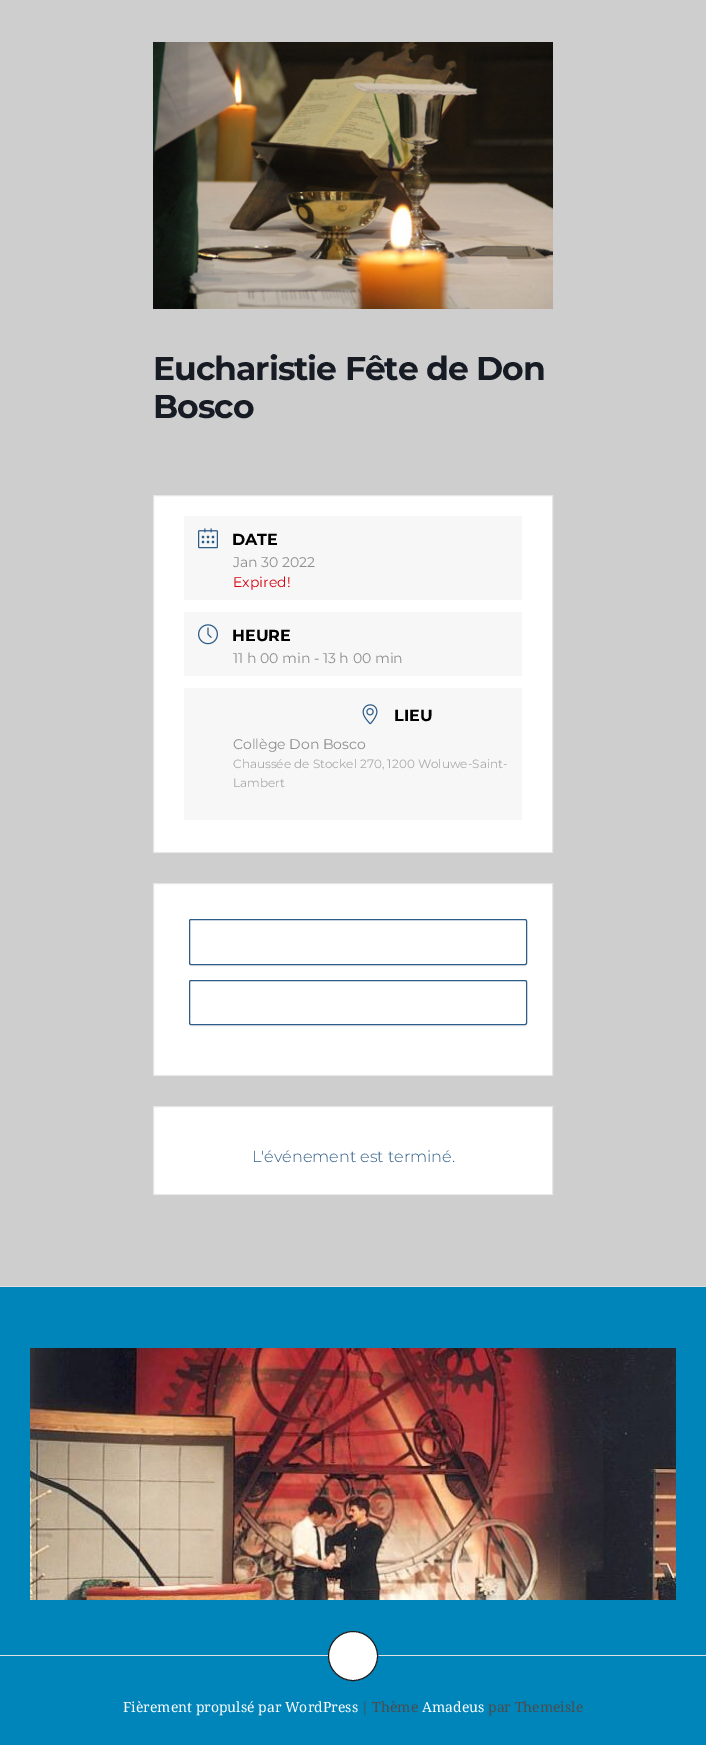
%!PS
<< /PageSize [706 1745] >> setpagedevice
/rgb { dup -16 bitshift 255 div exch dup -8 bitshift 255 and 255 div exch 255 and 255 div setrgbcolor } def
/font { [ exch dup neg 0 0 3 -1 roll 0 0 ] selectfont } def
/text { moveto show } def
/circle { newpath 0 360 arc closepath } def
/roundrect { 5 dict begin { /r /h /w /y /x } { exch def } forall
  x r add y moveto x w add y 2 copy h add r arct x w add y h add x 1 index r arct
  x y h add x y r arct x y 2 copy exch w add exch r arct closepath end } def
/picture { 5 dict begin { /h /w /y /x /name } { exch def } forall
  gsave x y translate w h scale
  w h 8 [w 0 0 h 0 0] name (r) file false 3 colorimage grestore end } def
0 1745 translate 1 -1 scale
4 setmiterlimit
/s1 { /Montserrat-Bold 16 font 16#000000 rgb } def
/s2 { /Montserrat-Regular 14 font 16#8D8D8D rgb } def
/s3 { /Montserrat-Regular 14 font 16#D8000C rgb } def
/s4 { /Montserrat-Regular 12 font 16#A9A9A9 rgb } def
/s5 { /Montserrat-Light 16 font 16#2D5C88 rgb } def
/s6 { /NotoSerif-Regular 14 font 16#FFFFFF rgb } def
/s7 { /NotoSerif-Regular 14 font 16#4C4C4C rgb } def
16#CECECE rgb
0 0 706 1745 rectfill
(pic1.raw) 153 42 400 267 picture
/Montserrat-Bold 33 font
16#171C24 rgb
153 380 moveto -1 0 (Eucharistie Fête de Don) ashow
153 418 moveto -1 0 (Bosco) ashow
16#CBCBCB rgb
153 853 400 2 rectfill
16#FFFFFF rgb
153.5 495.5 moveto 552.5 495.5 lineto 552.5 852.5 lineto 153.5 852.5 lineto closepath gsave fill grestore
16#E6E6E6 rgb
stroke
16#F7F7F7 rgb
184 516 338 84 rectfill
(pic2.raw) 198 528 20 21 picture
s1
(DATE) 232 545 text
s2
(Jan 30 2022) 233 567 text
s3
(Expired!) 233 587 text
16#F7F7F7 rgb
184 612 338 64 rectfill
(pic3.raw) 198 624 20 21 picture
s1
(HEURE) 232 641 text
s2
(11 h 00 min - 13 h 00 min) 233 663 text
16#F7F7F7 rgb
184 688 338 132 rectfill
(pic4.raw) 362 704 16 21 picture
s1
(LIEU) 394 721 text
s2
(Collège Don Bosco) 233 749 text
s4
(Chaussée de Stockel 270, 1200 Woluwe-Saint-) 233 768 text
(Lambert) 233 787 text
16#CBCBCB rgb
153 1076 400 2 rectfill
16#FFFFFF rgb
153.5 883.5 moveto 552.5 883.5 lineto 552.5 1075.5 lineto 153.5 1075.5 lineto closepath gsave fill grestore
16#E6E6E6 rgb
stroke
16#F7F7F7 rgb
189 963 moveto 189 965 lineto 189 966 190 967 191 967 curveto 525 967 lineto 526 967 527 966 527 965 curveto 527 963 lineto 527 964 526 965 525 965 curveto 191 965 lineto 190 965 189 964 189 963 curveto closepath fill
16#2D5C88 rgb
189.5 919.5 337 45 1.5 roundrect stroke
16#F7F7F7 rgb
189 1023 moveto 189 1025 lineto 189 1026 190 1027 191 1027 curveto 525 1027 lineto 526 1027 527 1026 527 1025 curveto 527 1023 lineto 527 1024 526 1025 525 1025 curveto 191 1025 lineto 190 1025 189 1024 189 1023 curveto closepath fill
16#2D5C88 rgb
189.5 980.5 337 44 1.5 roundrect stroke
16#CBCBCB rgb
153 1195 400 2 rectfill
16#FFFFFF rgb
153.5 1106.5 moveto 552.5 1106.5 lineto 552.5 1194.5 lineto 153.5 1194.5 lineto closepath gsave fill grestore
16#E6E6E6 rgb
stroke
s5
(L'événement est terminé.) 252 1162 text
16#0085BA rgb
0 1287 706 368 rectfill
16#E0E0E0 rgb
0 1286 706 1 rectfill
(pic5.raw) 30 1348 646 252 picture
16#0085BA rgb
0 1656 706 89 rectfill
16#E0E0E0 rgb
0 1655 706 1 rectfill
16#FFFFFF rgb
353 1656 24.5 circle gsave fill grestore
16#1C1C1C rgb
stroke
s6
(Fièrement propulsé par WordPress) 123 1712 text
s7
(| Thème) 361 1712 text
s6
(Amadeus) 422 1712 text
s7
(par Themeisle) 488 1712 text
showpage
